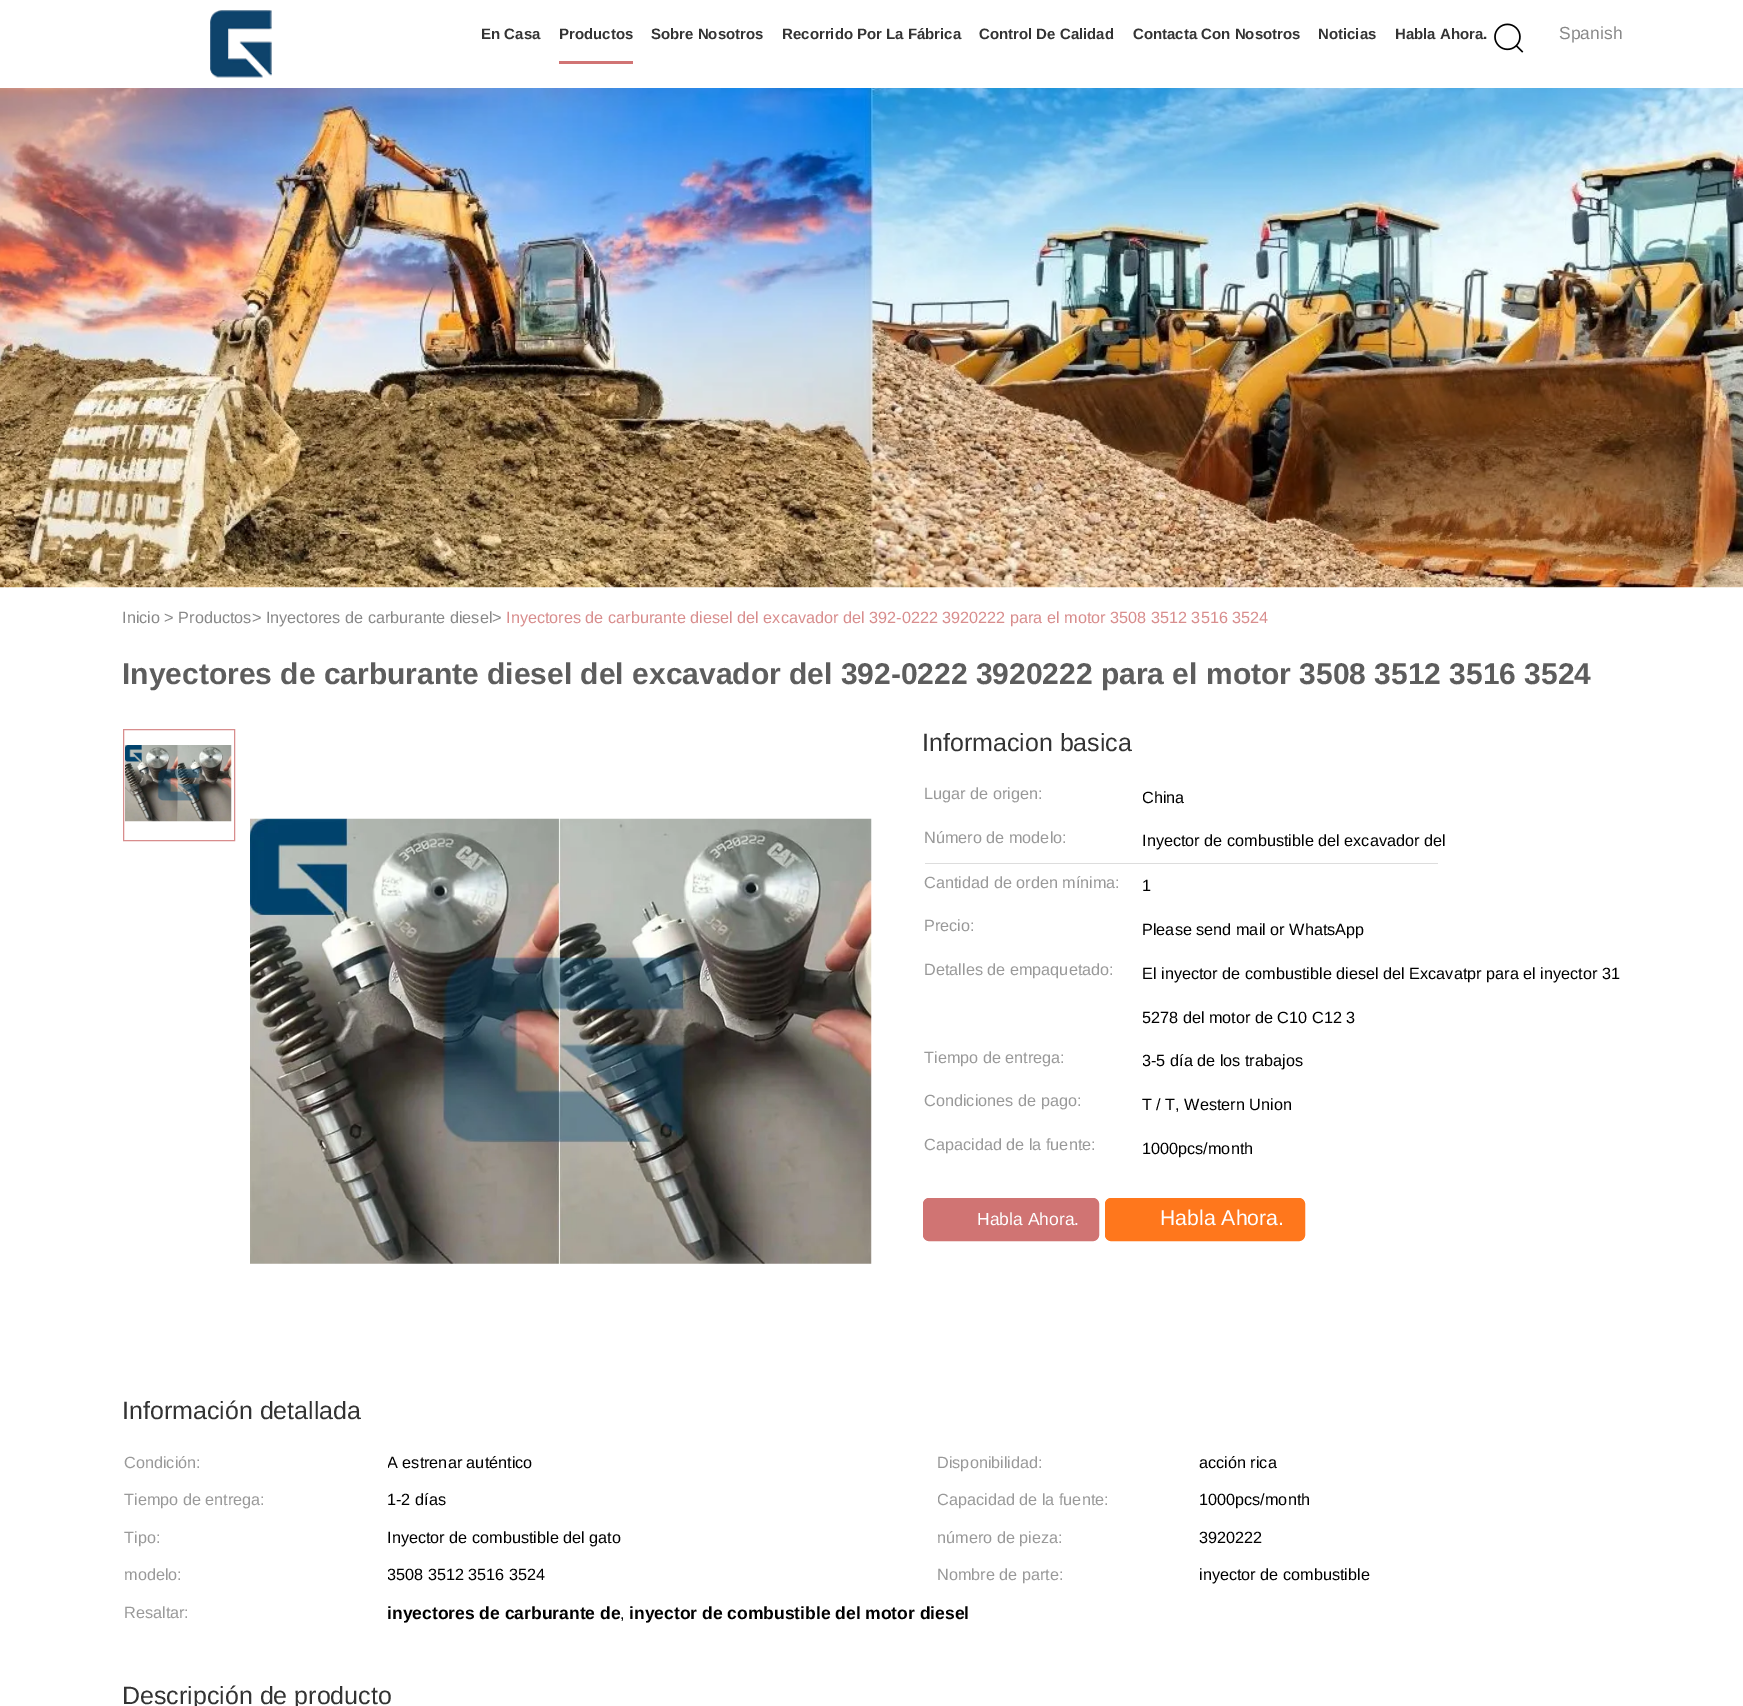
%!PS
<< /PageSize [1743 1706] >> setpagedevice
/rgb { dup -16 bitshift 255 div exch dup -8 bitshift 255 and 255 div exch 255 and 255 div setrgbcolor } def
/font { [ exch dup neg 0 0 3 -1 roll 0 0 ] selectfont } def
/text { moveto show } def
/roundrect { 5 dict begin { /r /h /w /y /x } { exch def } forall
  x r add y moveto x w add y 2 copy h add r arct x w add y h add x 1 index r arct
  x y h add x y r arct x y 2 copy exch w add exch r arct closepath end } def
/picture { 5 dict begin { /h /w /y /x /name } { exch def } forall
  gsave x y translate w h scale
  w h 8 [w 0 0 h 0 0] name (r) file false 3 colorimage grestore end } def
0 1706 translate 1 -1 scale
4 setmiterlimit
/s1 { /LiberationSans-Bold 15 font 16#333333 rgb } def
/s2 { /LiberationSans-Regular 17.5 font 16#888888 rgb } def
/s3 { /LiberationSans-Regular 16.25 font 16#888888 rgb } def
/s4 { /LiberationSans-Regular 16.25 font 16#D88D8D rgb } def
/s5 { /LiberationSans-Bold 30 font 16#5D5D5D rgb } def
/s6 { /LiberationSans-Regular 25 font 16#333333 rgb } def
/s7 { /LiberationSans-Regular 16.25 font 16#999999 rgb } def
/s8 { /LiberationSans-Regular 16.25 font 16#000000 rgb } def
/s9 { /LiberationSans-Regular 17.5 font 16#FFFFFF rgb } def
/s10 { /LiberationSans-Regular 21.25 font 16#FFFFFF rgb } def
/s11 { /LiberationSans-Bold 17.5 font 16#000000 rgb } def
16#FFFFFF rgb
0 0 1743 1706 rectfill
(pic1.raw) 210 10 62 68 picture
s1
(En Casa) 481 39 text
16#D17474 rgb
559 61 74 3 rectfill
s1
(Productos) 559 39 text
(Sobre Nosotros) 651 39 text
(Recorrido Por La Fábrica) 782 39 text
(Control De Calidad) 979 39 text
(Contacta Con Nosotros) 1133 39 text
(Noticias) 1318 39 text
(Habla Ahora.) 1395 39 text
(pic2.raw) 1494 23 30 30 picture
s2
(Spanish) 1559 39 text
(pic3.raw) 0 88 1743 500 picture
s3
(Inicio > Productos> Inyectores de carburante diesel>) 122 623 text
s4
(Inyectores de carburante diesel del excavador del 392-0222 3920222 para el motor 3508 3512 3516 3524) 506 623 text
s5
(Inyectores de carburante diesel del excavador del 392-0222 3920222 para el motor 3508 3512 3516 3524) 122 684 text
16#D88D8D rgb
123.5 729.5 111 111 rectstroke
(pic4.raw) 125 745 107 77 picture
(pic5.raw) 250 818 622 446 picture
s6
(Informacion basica) 922 751 text
s7
(Lugar de origen:) 924 799 text
gsave
1143 775 480 44 rectclip
s8
(China) 1142 803 text
grestore
(Número de modelo:) 924 843 text
s8
(Inyector de combustible del excavador del) 1142 846 text
16#DDDDDD rgb
925 863 513 1 rectfill
s7
(Cantidad de orden mínima:) 924 888 text
s8
(1) 1142 891 text
s7
(Precio:) 924 931 text
s8
(Please send mail or WhatsApp) 1142 935 text
s7
(Detalles de empaquetado:) 924 975 text
s8
(El inyector de combustible diesel del Excavatpr para el inyector 31) 1142 979 text
gsave
1143 951 480 88 rectclip
(5278 del motor de C10 C12 3) 1142 1023 text
grestore
s7
(Tiempo de entrega:) 924 1063 text
gsave
1143 1039 480 44 rectclip
s8
(3-5 día de los trabajos) 1142 1066 text
grestore
(Condiciones de pago:) 924 1106 text
s8
(T / T, Western Union) 1142 1110 text
s7
(Capacidad de la fuente:) 924 1150 text
s8
(1000pcs/month) 1142 1154 text
16#D07473 rgb
923.5 1198.5 175 42 5.5 roundrect gsave fill grestore
stroke
s9
(Habla Ahora.) 977 1225 text
16#FF771C rgb
1105.5 1198.5 199 42 5.5 roundrect gsave fill grestore
stroke
s10
(Habla Ahora.) 1160 1225 text
s6
(Información detallada) 122 1419 text
s7
(Condición:) 124 1468 text
gsave
388 1444 550 37 rectclip
s8
(A estrenar auténtico) 387 1468 text
grestore
(Disponibilidad:) 937 1468 text
s8
(acción rica) 1199 1468 text
s7
(Tiempo de entrega:) 124 1505 text
s8
(1-2 días) 387 1505 text
gsave
938 1481 262 38 rectclip
s7
(Capacidad de la fuente:) 937 1505 text
grestore
(1000pcs/month) 1199 1505 text
s7
(Tipo:) 124 1543 text
s8
(Inyector de combustible del gato) 387 1543 text
s7
(número de pieza:) 937 1543 text
s8
(3920222) 1199 1543 text
s7
(modelo:) 124 1580 text
gsave
388 1556 550 38 rectclip
s8
(3508 3512 3516 3524) 387 1580 text
grestore
(Nombre de parte:) 937 1580 text
s8
(inyector de combustible) 1199 1580 text
s7
(Resaltar:) 124 1618 text
s11
(inyectores de carburante de) 387 1619 text
s8
(,) 620 1619 text
s11
(inyector de combustible del motor diesel) 629 1619 text
s6
(Descripción de producto) 122 1704 text
showpage
